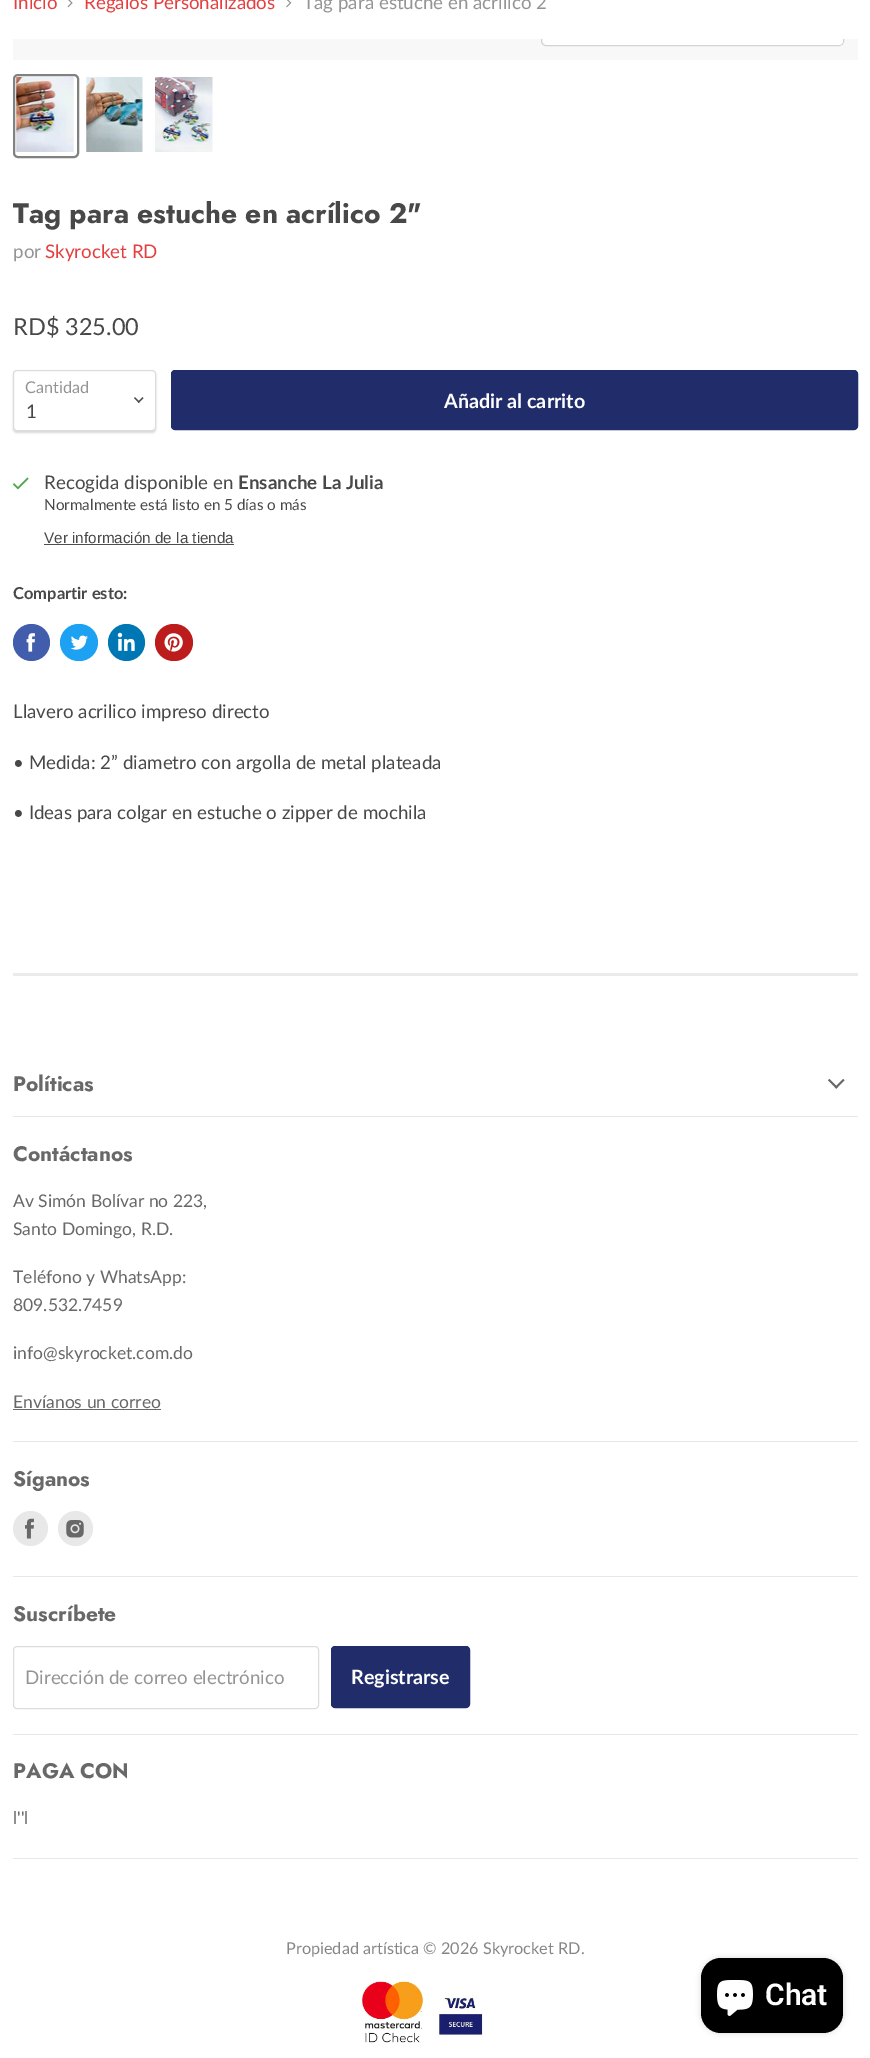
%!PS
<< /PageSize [870 2058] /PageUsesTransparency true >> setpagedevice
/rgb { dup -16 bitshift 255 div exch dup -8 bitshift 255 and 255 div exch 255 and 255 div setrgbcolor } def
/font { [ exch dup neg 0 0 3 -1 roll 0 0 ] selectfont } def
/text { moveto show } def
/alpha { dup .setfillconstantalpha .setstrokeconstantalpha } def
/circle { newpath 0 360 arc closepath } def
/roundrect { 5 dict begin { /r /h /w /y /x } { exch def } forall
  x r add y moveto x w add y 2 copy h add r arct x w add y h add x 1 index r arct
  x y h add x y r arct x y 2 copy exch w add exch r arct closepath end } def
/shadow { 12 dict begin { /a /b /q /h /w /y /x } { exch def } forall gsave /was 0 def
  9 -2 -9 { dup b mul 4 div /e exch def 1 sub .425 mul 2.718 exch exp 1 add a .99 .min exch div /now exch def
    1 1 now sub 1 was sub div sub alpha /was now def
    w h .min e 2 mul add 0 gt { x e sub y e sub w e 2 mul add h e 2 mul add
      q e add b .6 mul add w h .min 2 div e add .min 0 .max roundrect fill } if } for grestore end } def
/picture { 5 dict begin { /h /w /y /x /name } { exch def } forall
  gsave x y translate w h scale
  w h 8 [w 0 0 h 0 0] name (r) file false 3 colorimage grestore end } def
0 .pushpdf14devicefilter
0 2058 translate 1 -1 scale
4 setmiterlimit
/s1 { /Lato-Regular 18.75 font 16#E33F3E rgb } def
/s2 { /Lato-Regular 18.75 font 16#949494 rgb } def
/s3 { /Jost-Bold 28.1 font 16#484848 rgb } def
/s4 { /Lato-Regular 23.5 font 16#484848 rgb } def
/s5 { /Lato-Regular 16.25 font 16#949494 rgb } def
/s6 { /Lato-Regular 18.75 font 16#484848 rgb } def
/s7 { /Lato-Bold 19.75 font 16#FFFFFF rgb } def
/s8 { /Lato-Bold 18.75 font 16#484848 rgb } def
/s9 { /Lato-Regular 15.25 font 16#484848 rgb } def
/s10 { /LiberationSans-Regular 15.25 font 16#484848 rgb } def
/s11 { /Lato-Bold 16.5 font 16#484848 rgb } def
/s12 { /Jost-Bold 21 font 16#686868 rgb } def
/s13 { /Lato-Regular 17.5 font 16#686868 rgb } def
/s14 { /Lato-Regular 16.25 font 16#868686 rgb } def
/s15 { /Roboto-SemiBold 30 font 16#FFFFFF rgb } def
16#FFFFFF rgb
0 0 870 2058 rectfill
s1
(Inicio) 13 9 text
(pic1.raw) 67 0 6 8 picture
(Regalos Personalizados) 84 9 text
(pic2.raw) 286 0 6 8 picture
s2
(Tag para estuche en acrílico 2) 303 9 text
16#F8F8F8 rgb
13 39 845 21 rectfill
gsave
13 39 845 21 rectclip
16#D3D3D3 rgb
541.5 10.5 302 35 4.5 roundrect stroke
grestore
0.9 alpha
16#FFFFFF rgb
543 39 moveto 843 39 lineto 843 41 lineto 843 43 841 45 839 45 curveto 547 45 lineto 545 45 543 43 543 41 curveto closepath fill
1 alpha
16#818181 rgb
2 setlinewidth
14 75 64 82 4 roundrect stroke
(pic3.raw) 16 77 58 75 picture
(pic4.raw) 86 77 57 75 picture
(pic5.raw) 155 77 58 75 picture
s3
(Tag para estuche en acrílico 2") 13 223 text
s2
(por) 13 258 text
s1
(Skyrocket RD) 45 258 text
s4
(RD$ 325.00) 13 335 text
gsave
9 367 moveto 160 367 lineto 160 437 lineto 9 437 lineto closepath 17 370 moveto 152 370 lineto 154 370 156 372 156 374 curveto 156 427 lineto 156 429 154 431 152 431 curveto 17 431 lineto 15 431 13 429 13 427 curveto 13 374 lineto 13 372 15 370 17 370 curveto closepath eoclip newpath
16#000000 rgb
13 371 143 62 4 1 0.15 shadow
grestore
16#DDDDDD rgb
1 setlinewidth
13.5 370.5 142 60 3.5 roundrect stroke
s5
(Cantidad) 25 393 text
(pic6.raw) 134 397 10 6 picture
s6
(1) 26 418 text
16#212C6A rgb
171.5 370.5 686 59 3.5 roundrect gsave fill grestore
stroke
s7
(Añadir al carrito) 444 408 text
(pic7.raw) 13 477 16 13 picture
s6
(Recogida disponible en) 44 489 text
s8
(Ensanche La Julia) 238 489 text
s9
(Normalmente está listo en 5 días o más) 44 510 text
s10
(Ver información de la tienda) 44 543 text
16#4D4D4D rgb
44 544 190 1 rectfill
s11
(Compartir esto:) 13 599 text
16#425DAB rgb
31.5 642.5 18.5 circle fill
(pic8.raw) 26 633 9 19 picture
16#1DA1F2 rgb
60 624 38 37 18.5 roundrect fill
(pic9.raw) 70 635 18 15 picture
16#0077B5 rgb
126.5 642.5 18.5 circle fill
(pic10.raw) 117 632 18 19 picture
16#BD1C1C rgb
155 624 38 37 18.5 roundrect fill
(pic11.raw) 164 633 19 19 picture
s6
(Llavero acrilico impreso directo) 13 718 text
(• Medida: 2” diametro con argolla de metal plateada) 13 769 text
(• Ideas para colgar en estuche o zipper de mochila) 13 819 text
0.16 alpha
16#808080 rgb
13 973 845 3 rectfill
1 alpha
16#E8E8E8 rgb
13 1116 845 1 rectfill
s12
(Políticas) 13 1091 text
(pic12.raw) 828 1079 17 10 picture
16#E8E8E8 rgb
13 1441 845 1 rectfill
s12
(Contáctanos) 13 1161 text
s13
(Av Simón Bolívar no 223,) 13 1207 text
(Santo Domingo, R.D.) 13 1235 text
(Teléfono y WhatsApp:) 13 1283 text
(809.532.7459) 13 1311 text
(info@skyrocket.com.do) 13 1359 text
(Envíanos un correo) 13 1408 text
13 1409 148 1 rectfill
16#E8E8E8 rgb
13 1576 845 1 rectfill
s12
(Síganos) 13 1486 text
16#E8E8E8 rgb
30.5 1528.5 17.5 circle fill
(pic13.raw) 25 1518 9 21 picture
75.5 1528.5 17.5 circle fill
(pic14.raw) 66 1520 18 18 picture
13 1734 845 1 rectfill
s12
(Suscríbete) 13 1621 text
16#DDDDDD rgb
13.5 1646.5 305 62 3.5 roundrect stroke
s2
(Dirección de correo electrónico) 25 1684 text
16#212C6A rgb
331.5 1646.5 138 61 3.5 roundrect gsave fill grestore
stroke
s7
(Registrarse) 351 1684 text
16#E8E8E8 rgb
13 1858 845 1 rectfill
s12
(PAGA CON) 13 1778 text
s13
(l''l) 13 1824 text
s14
(Propiedad artística © 2026 Skyrocket RD.) 286 1954 text
(pic15.raw) 360 1978 123 65 picture
16#000000 rgb
701 1958 142 75 20 3 0.15 shadow
701 1958 142 75 20 roundrect fill
(pic16.raw) 717 1980 36 36 picture
s15
(Chat) 765 2005 text
.poppdf14devicefilter showpage
